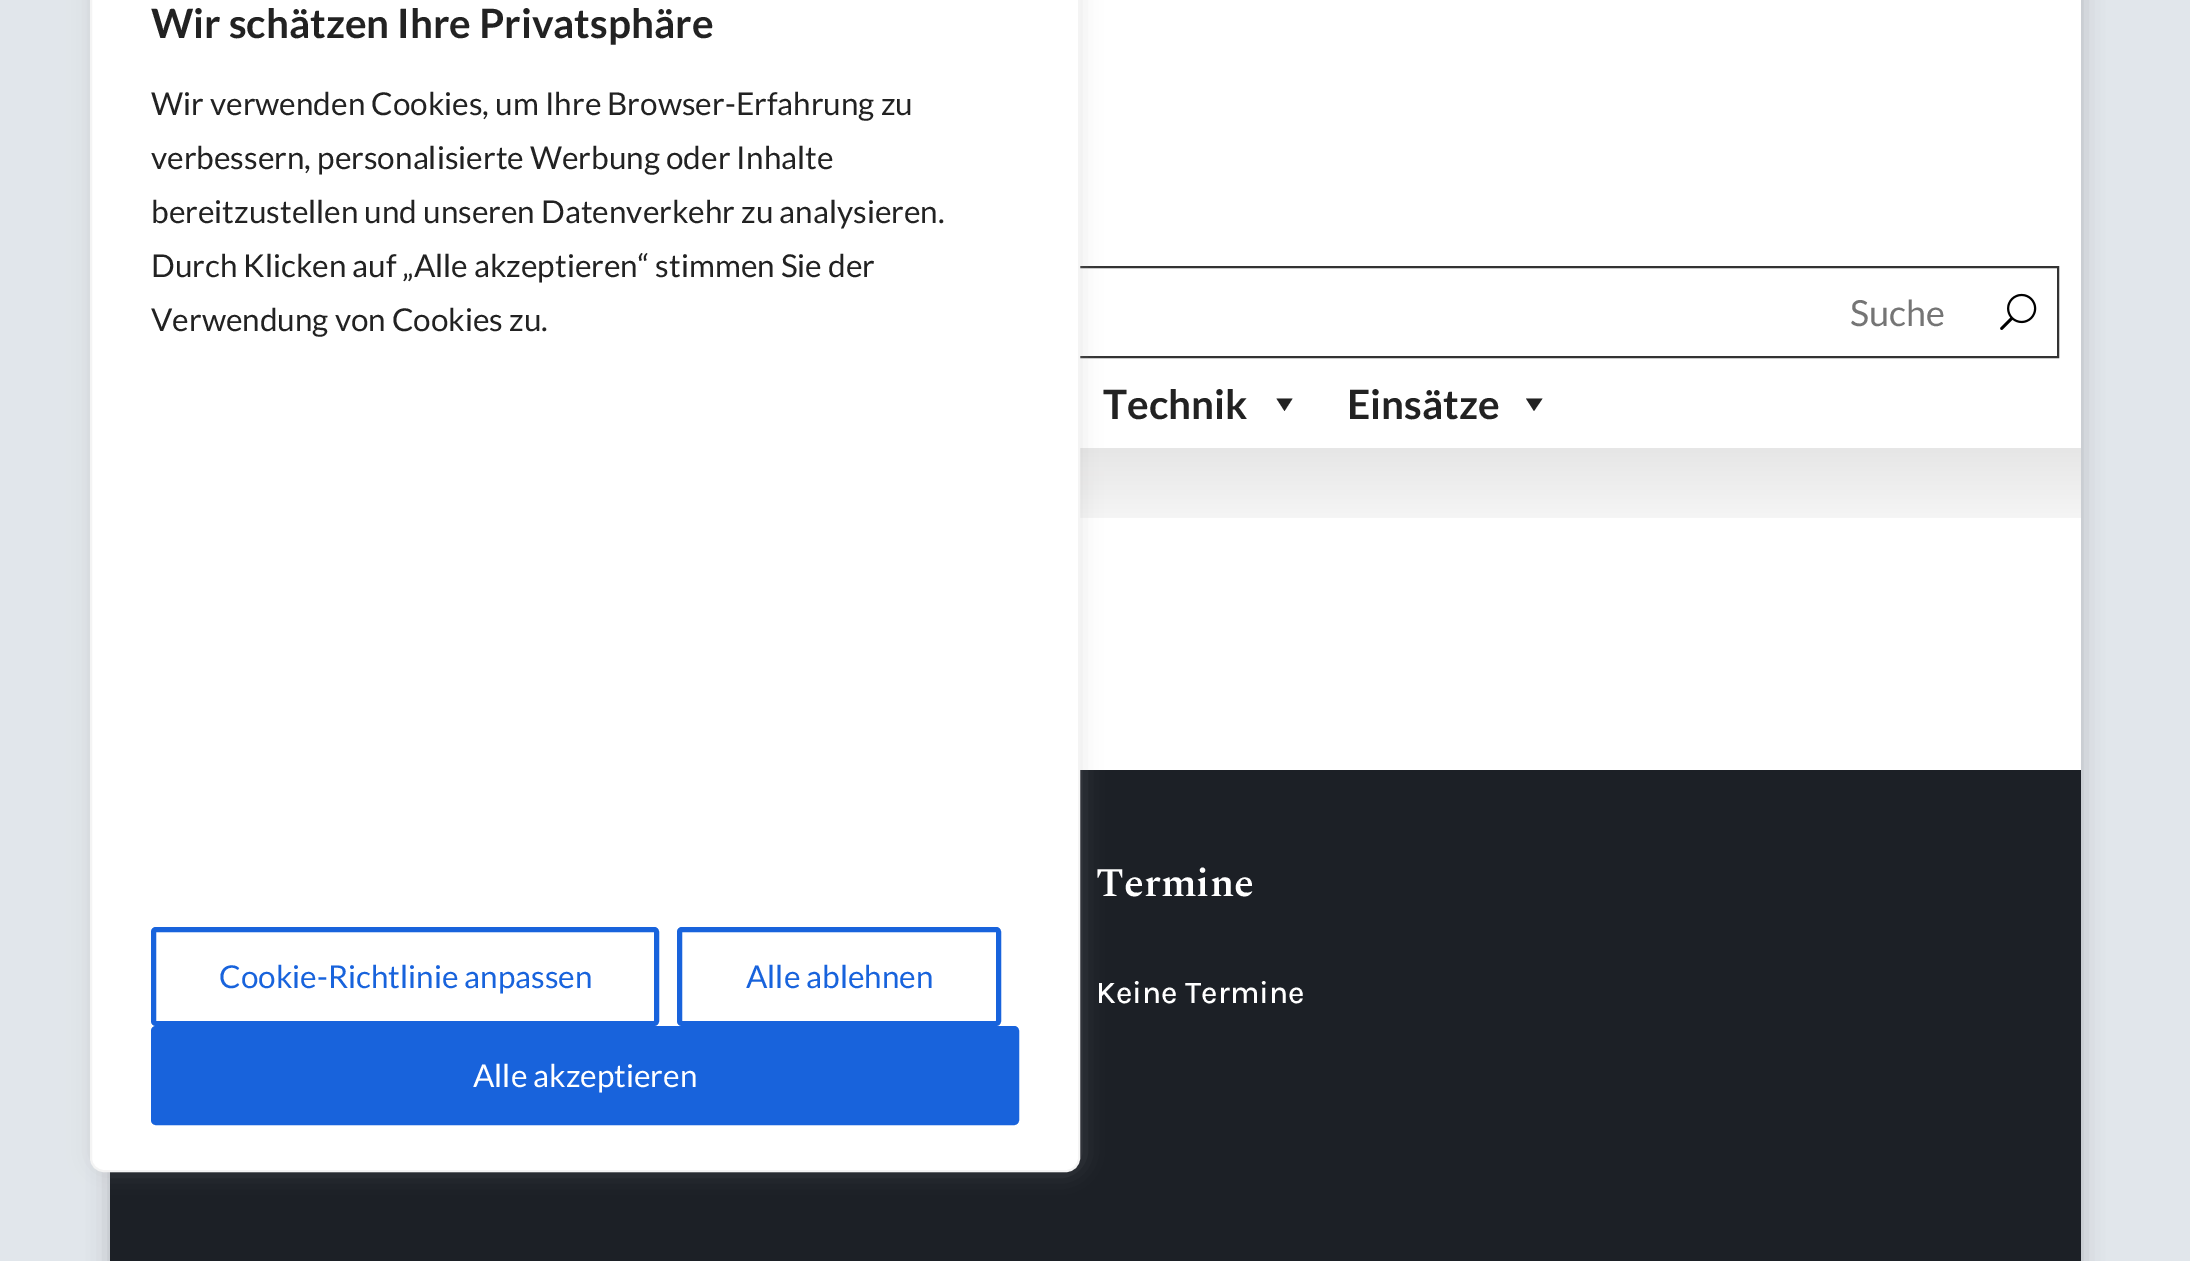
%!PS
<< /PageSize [2190 1261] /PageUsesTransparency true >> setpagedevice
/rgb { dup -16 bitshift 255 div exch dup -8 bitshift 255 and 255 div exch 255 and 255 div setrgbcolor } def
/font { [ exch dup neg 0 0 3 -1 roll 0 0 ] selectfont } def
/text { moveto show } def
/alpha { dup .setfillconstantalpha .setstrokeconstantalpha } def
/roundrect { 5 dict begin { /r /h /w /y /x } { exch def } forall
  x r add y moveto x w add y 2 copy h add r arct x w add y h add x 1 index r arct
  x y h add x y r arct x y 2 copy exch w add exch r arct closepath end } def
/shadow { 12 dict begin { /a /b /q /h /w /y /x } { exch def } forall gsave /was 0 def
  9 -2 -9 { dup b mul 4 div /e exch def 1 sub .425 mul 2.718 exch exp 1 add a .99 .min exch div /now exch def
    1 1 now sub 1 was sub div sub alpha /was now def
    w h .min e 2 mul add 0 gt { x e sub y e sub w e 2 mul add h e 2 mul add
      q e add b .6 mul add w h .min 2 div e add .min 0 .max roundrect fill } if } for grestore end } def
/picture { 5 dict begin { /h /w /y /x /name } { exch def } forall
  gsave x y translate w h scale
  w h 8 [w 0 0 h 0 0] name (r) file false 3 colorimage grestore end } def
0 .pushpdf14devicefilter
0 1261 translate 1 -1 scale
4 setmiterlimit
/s1 { /Lato-Bold 40.5 font 16#222222 rgb } def
/s2 { /Lato-Regular 31.5 font 16#222222 rgb } def
/s3 { /Lato-Regular 31.5 font 16#1863DC rgb } def
/s4 { /Lato-Regular 31.5 font 16#FFFFFF rgb } def
/s5 { /Lato-Regular 36 font 16#757575 rgb } def
/s6 { /Spectral-SemiBold 40.5 font 16#FFFFFF rgb } def
/s7 { /Karla-Medium 31.5 font 16#FFFFFF rgb } def
16#E1E6EB rgb
0 0 2190 1261 rectfill
16#000000 rgb
110 -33 1971 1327 0 11 0.2 shadow
16#FFFFFF rgb
1080 0 1001 448 rectfill
16#333333 rgb
2 setlinewidth
505 267 1553 90 rectstroke
gsave 1080 448 moveto 2081 448 lineto 2081 518 lineto 1080 518 lineto closepath clip newpath
<< /ShadingType 2 /ColorSpace /DeviceRGB /Coords [1096 448 1096 518] /Extend [true true] /Function << /FunctionType 2 /Domain [0 1] /C0 [0.902 0.902 0.902] /C1 [0.961 0.961 0.961] /N 1 >> >> shfill grestore
16#FFFFFF rgb
1080 518 1001 252 rectfill
16#1C2026 rgb
110 770 1971 491 rectfill
16#ACABAB rgb
90 -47 990 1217 14 11 0.3 shadow
16#FFFFFF rgb
91 -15 988 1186 13 roundrect gsave fill grestore
16#F4F4F4 rgb
stroke
s1
(Wir schätzen Ihre Privatsphäre) 151 38 text
s2
(Wir verwenden Cookies, um Ihre Browser-Erfahrung zu) 151 115 text
(verbessern, personalisierte Werbung oder Inhalte) 151 169 text
(bereitzustellen und unseren Datenverkehr zu analysieren.) 151 223 text
(Durch Klicken auf „Alle akzeptieren“ stimmen Sie der) 151 277 text
(Verwendung von Cookies zu.) 151 331 text
16#1863DC rgb
5 setlinewidth
153.5 929.5 503 94 2.5 roundrect stroke
(Cookie-Richtlinie anpassen) 219 988 text
679.5 929.5 319 94 2.5 roundrect stroke
(Alle ablehnen) 746 988 text
153.5 1028.5 863 94 2.5 roundrect gsave fill grestore
stroke
s4
(Alle akzeptieren) 473 1087 text
s5
(Suche) 1850 326 text
(pic1.raw) 2000 293 37 37 picture
s1
(Technik) 1103 419 text
1292.5 398.5 moveto 1284.5 411 lineto 1276.5 398.5 lineto closepath fill
(Einsätze) 1347 419 text
1542.5 398.5 moveto 1534 411 lineto 1526 398.5 lineto closepath fill
s6
(Termine) 1096 896 text
s7
(Keine Termine) 1096 1003 text
.poppdf14devicefilter showpage
